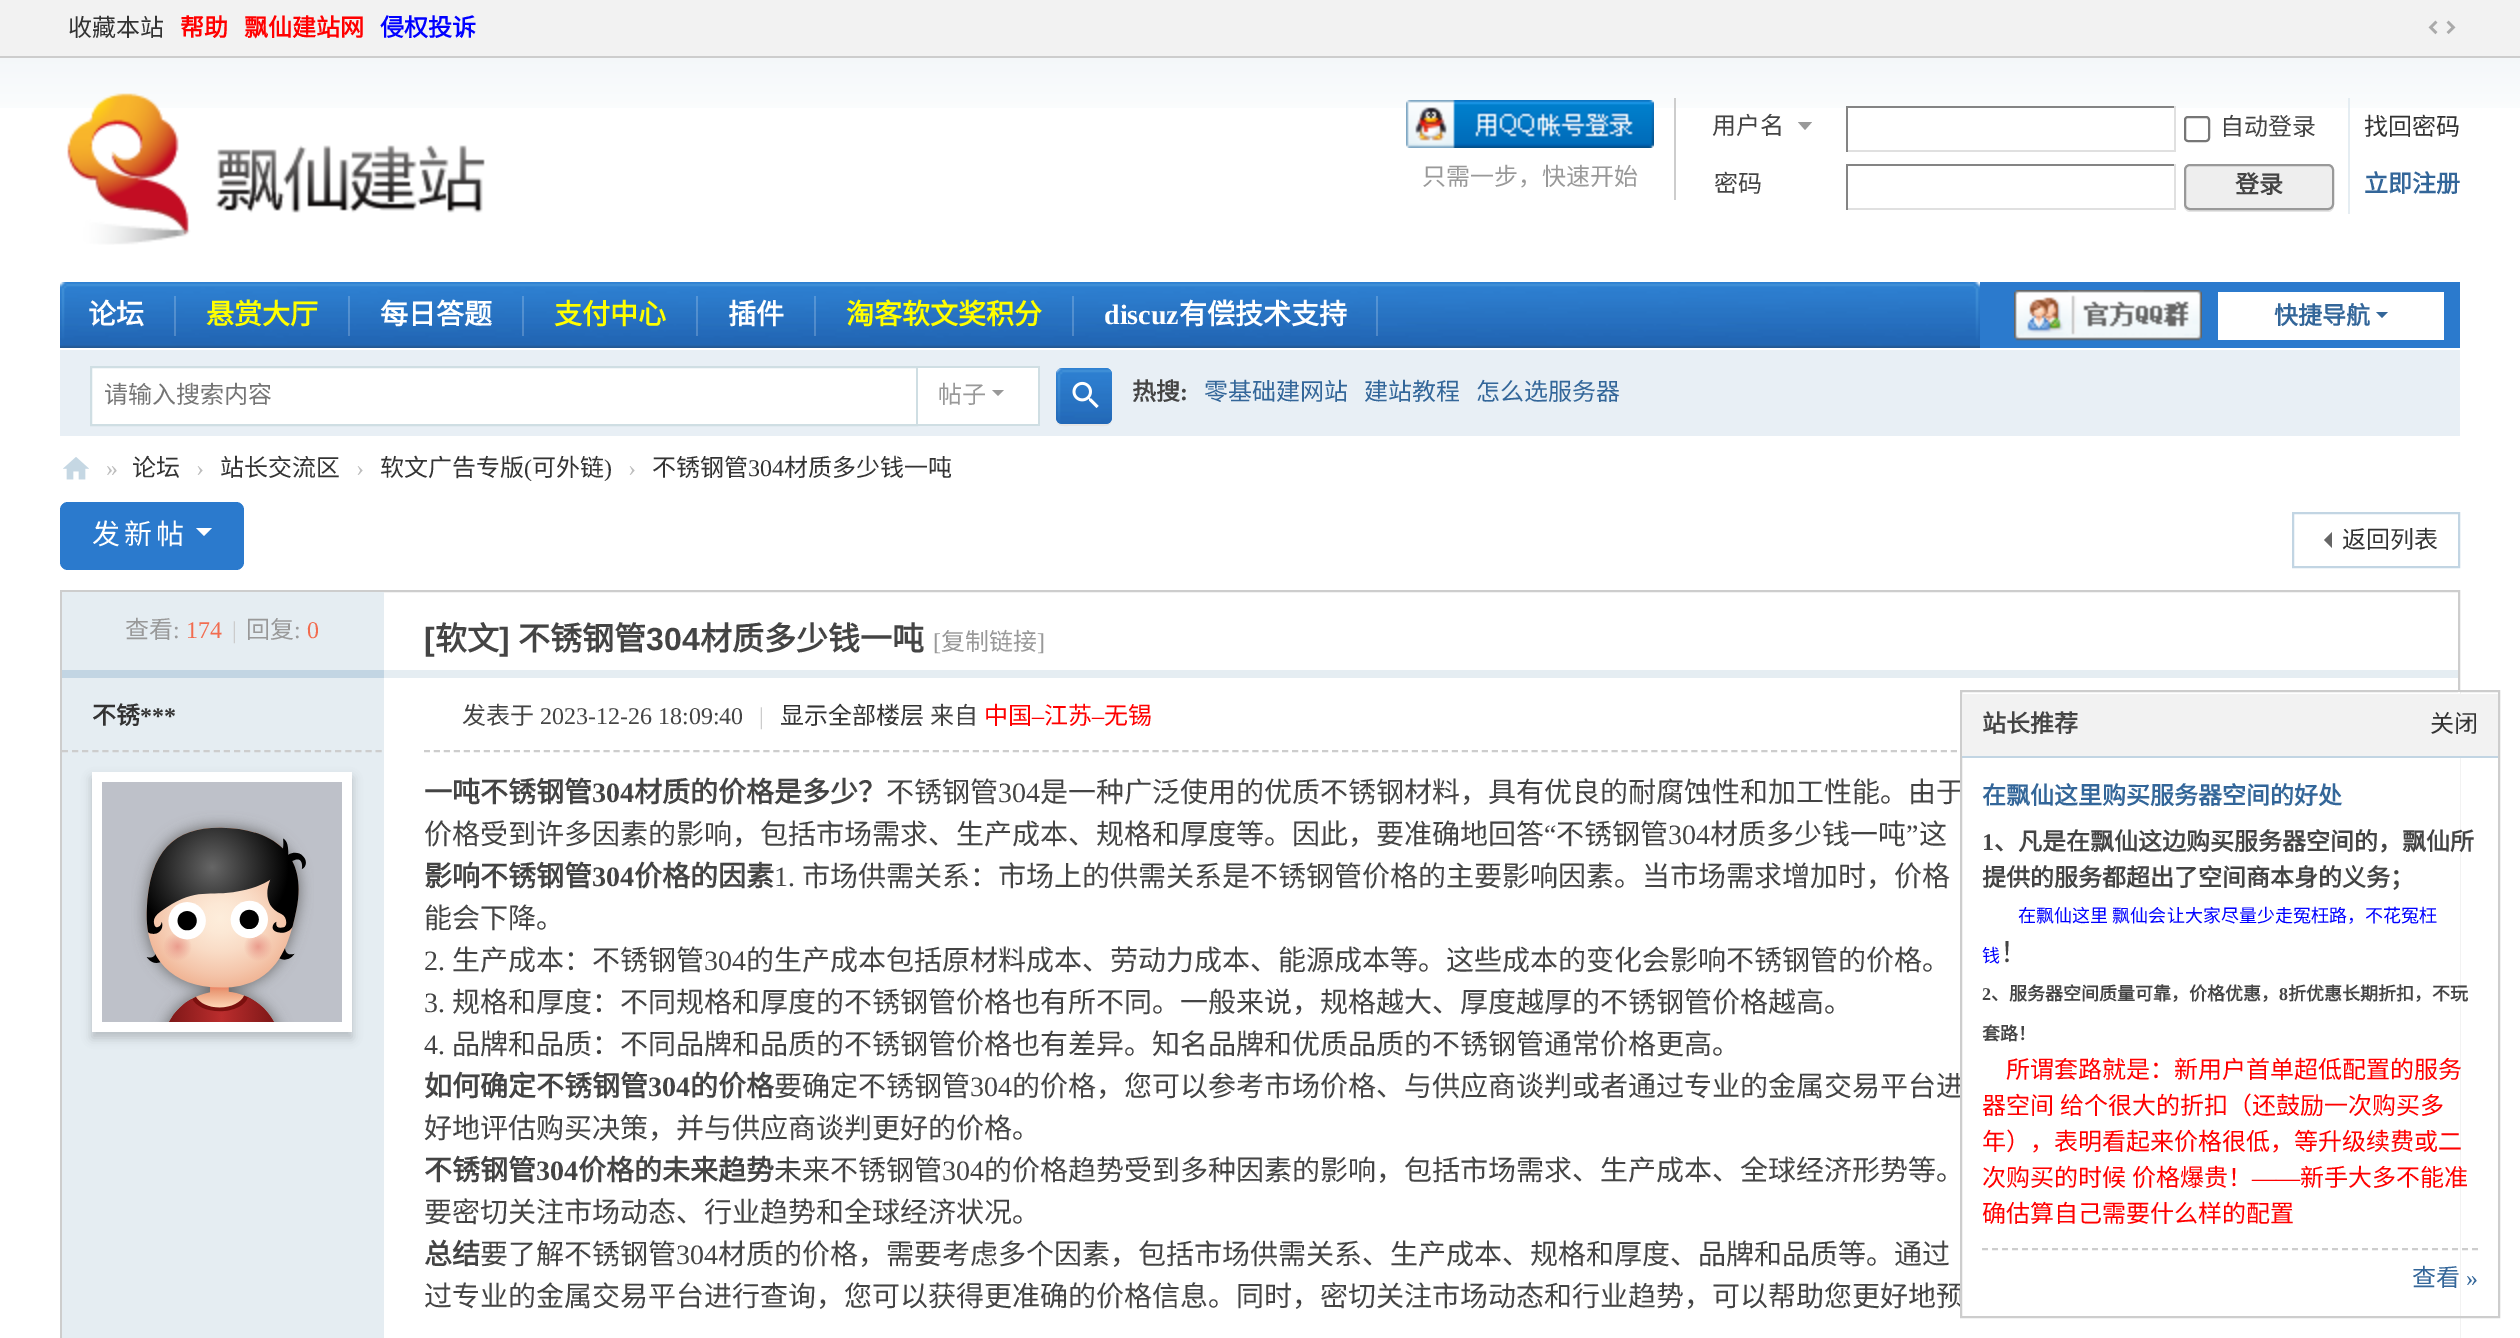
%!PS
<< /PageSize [2520 1338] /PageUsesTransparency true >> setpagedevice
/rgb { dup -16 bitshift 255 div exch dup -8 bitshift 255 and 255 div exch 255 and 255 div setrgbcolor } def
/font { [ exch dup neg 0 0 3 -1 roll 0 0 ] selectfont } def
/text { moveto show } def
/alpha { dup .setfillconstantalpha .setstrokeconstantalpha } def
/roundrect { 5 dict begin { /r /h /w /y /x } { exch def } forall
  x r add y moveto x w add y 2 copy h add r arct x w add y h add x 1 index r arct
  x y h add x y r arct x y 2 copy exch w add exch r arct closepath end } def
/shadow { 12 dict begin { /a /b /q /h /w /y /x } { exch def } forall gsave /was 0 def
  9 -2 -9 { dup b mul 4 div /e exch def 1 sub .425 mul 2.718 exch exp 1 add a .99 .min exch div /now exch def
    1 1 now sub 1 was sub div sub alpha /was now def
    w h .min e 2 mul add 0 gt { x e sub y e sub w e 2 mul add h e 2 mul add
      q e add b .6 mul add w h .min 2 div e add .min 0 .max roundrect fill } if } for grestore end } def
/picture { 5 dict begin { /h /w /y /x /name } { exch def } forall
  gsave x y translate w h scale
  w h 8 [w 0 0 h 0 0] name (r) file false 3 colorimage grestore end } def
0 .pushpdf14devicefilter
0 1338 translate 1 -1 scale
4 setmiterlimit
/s1 { /NotoSansCJKSC-Regular 24 font 16#333333 rgb } def
/s2 { /NotoSansCJKSC-Bold 24 font 16#FF0000 rgb } def
/s3 { /NotoSansCJKSC-Bold 24 font 16#0000FF rgb } def
/s4 { /NotoSansCJKSC-Regular 24 font 16#999999 rgb } def
/s5 { /NotoSansCJKSC-Regular 24 font 16#444444 rgb } def
/s6 { /NotoSansCJKSC-Bold 24 font 16#444444 rgb } def
/s7 { /NotoSansCJKSC-Bold 24 font 16#336699 rgb } def
/s8 { /NotoSansCJKSC-Bold 28 font 16#FFFFFF rgb } def
/s9 { /NotoSansCJKSC-Bold 28 font 16#FFFF00 rgb } def
/s10 { /LiberationSerif-Bold 28 font 16#FFFFFF rgb } def
/s11 { /NotoSansCJKSC-Regular 24 font 16#757575 rgb } def
/s12 { /LiberationSerif-Bold 24 font 16#444444 rgb } def
/s13 { /NotoSansCJKSC-Regular 24 font 16#336699 rgb } def
/s14 { /LiberationSerif-Regular 24 font 16#BDBDBD rgb } def
/s15 { /LiberationSerif-Regular 24 font 16#333333 rgb } def
/s16 { /LiberationSerif-Regular 24 font 16#999999 rgb } def
/s17 { /LiberationSerif-Regular 24 font 16#F26C4F rgb } def
/s18 { /LiberationSerif-Regular 24 font 16#CCCCCC rgb } def
/s19 { /LiberationSans-Bold 32 font 16#444444 rgb } def
/s20 { /NotoSansCJKSC-Bold 32 font 16#444444 rgb } def
/s21 { /NotoSansCJKSC-Bold 24 font 16#333333 rgb } def
/s22 { /LiberationSerif-Bold 24 font 16#333333 rgb } def
/s23 { /LiberationSerif-Regular 24 font 16#444444 rgb } def
/s24 { /NotoSansCJKSC-Regular 24 font 16#FF0000 rgb } def
/s25 { /LiberationSerif-Regular 24 font 16#FF0000 rgb } def
/s26 { /NotoSansCJKSC-Bold 28 font 16#444444 rgb } def
/s27 { /LiberationSerif-Bold 28 font 16#444444 rgb } def
/s28 { /NotoSansCJKSC-Regular 28 font 16#444444 rgb } def
/s29 { /LiberationSerif-Regular 28 font 16#444444 rgb } def
/s30 { /NotoSansCJKSC-Regular 18 font 16#0000FF rgb } def
/s31 { /LiberationSerif-Bold 18 font 16#444444 rgb } def
/s32 { /NotoSansCJKSC-Bold 18 font 16#444444 rgb } def
/s33 { /LiberationSerif-Regular 24 font 16#336699 rgb } def
16#FFFFFF rgb
0 0 2520 1338 rectfill
(pic1.raw) 0 58 2520 50 picture
16#F2F2F2 rgb
0 0 2520 56 rectfill
16#CDCDCD rgb
0 56 2520 2 rectfill
s1
(收藏本站) 68 36 text
s2
(帮助) 180 36 text
(飘仙建站网) 244 36 text
s3
(侵权投诉) 380 36 text
(pic2.raw) 2428 20 28 15 picture
(pic3.raw) 67 93 418 152 picture
16#CDCDCD rgb
1674 98 2 102 rectfill
(pic4.raw) 1406 100 248 48 picture
s4
(只需一步，快速开始) 1422 185 text
1812 122 moveto 1798 122 lineto 1805 130 lineto closepath fill
s5
(用户名) 1712 134 text
16#848484 rgb
1846 106 330 2 rectfill
16#E0E0E0 rgb
2174 106 2 46 rectfill
1846 150 330 2 rectfill
16#848484 rgb
1846 106 2 46 rectfill
16#767676 rgb
2 setlinewidth
2185 117 24 24 3 roundrect stroke
s5
(自动登录) 2220 135 text
s1
(找回密码) 2364 135 text
s5
(密码) 1714 192 text
16#848484 rgb
1846 164 330 2 rectfill
16#E0E0E0 rgb
2174 164 2 46 rectfill
1846 208 330 2 rectfill
16#848484 rgb
1846 164 2 46 rectfill
16#E5EDF2 rgb
2348 98 2 116 rectfill
16#E5E5E5 rgb
2184 204 moveto 2184 206 lineto 2184 209 2187 212 2190 212 curveto 2328 212 lineto 2331 212 2334 209 2334 206 curveto 2334 204 lineto 2334 207 2331 210 2328 210 curveto 2190 210 lineto 2187 210 2184 207 2184 204 curveto closepath fill
16#EEEEEE rgb
2185 165 148 44 5 roundrect gsave fill grestore
16#999999 rgb
stroke
s6
(登录) 2235 193 text
s7
(立即注册) 2364 192 text
16#2B7ACD rgb
1980 282 480 66 rectfill
(pic5.raw) 60 282 1920 66 picture
0.2 alpha
16#FFFFFF rgb
174 296 2 40 rectfill
1 alpha
s8
(论坛) 88 324 text
0.2 alpha
348 296 2 40 rectfill
1 alpha
s9
(悬赏大厅) 206 324 text
0.2 alpha
16#FFFFFF rgb
522 296 2 40 rectfill
1 alpha
(每日答题) 380 324 text
0.2 alpha
696 296 2 40 rectfill
1 alpha
s9
(支付中心) 554 324 text
0.2 alpha
16#FFFFFF rgb
814 296 2 40 rectfill
1 alpha
(插件) 728 324 text
0.2 alpha
1072 296 2 40 rectfill
1 alpha
s9
(淘客软文奖积分) 846 324 text
0.2 alpha
16#FFFFFF rgb
1376 296 2 40 rectfill
1 alpha
s10
(discuz) 1104 324 text
s8
(有偿技术支持) 1179 324 text
(pic6.raw) 2014 290 188 51 picture
2218 292 226 48 rectfill
s7
(快捷导航) 2274 324 text
2376 312 moveto 2388 312 lineto 2382 318 lineto closepath fill
16#E8EFF5 rgb
60 350 2400 86 rectfill
16#CFDEE3 rgb
914 366 126 2 rectfill
1038 366 2 60 rectfill
914 424 126 2 rectfill
16#FFFFFF rgb
91 367 moveto 917 367 lineto 917 425 lineto 91 425 lineto closepath gsave fill grestore
16#CFDEE3 rgb
stroke
s11
(请输入搜索内容) 104 403 text
16#FFFFFF rgb
918 368 120 56 rectfill
s4
(帖子) 938 403 text
992 390 moveto 1004 390 lineto 998 396 lineto closepath fill
16#E5E5E5 rgb
1056 418 moveto 1056 427 1062 426 1069 426 curveto 1099 426 lineto 1106 426 1112 427 1112 418 curveto 1112 421 1109 424 1106 424 curveto 1062 424 lineto 1059 424 1056 421 1056 418 curveto closepath fill
(pic7.raw) 1056 368 56 56 picture
(pic8.raw) 1072 381 27 27 picture
s6
(热搜) 1132 400 text
s12
(:) 1180 400 text
s13
(零基础建网站) 1204 400 text
(建站教程) 1364 400 text
(怎么选服务器) 1476 400 text
(pic9.raw) 63 457 26 23 picture
s14
(») 106 476 text
s1
(论坛) 132 476 text
s14
(›) 196 476 text
s1
(站长交流区) 220 476 text
s14
(›) 356 476 text
s1
(软文广告专版) 380 476 text
s15
(\() 524 476 text
s1
(可外链) 532 476 text
s15
(\)) 604 476 text
s14
(›) 628 476 text
s1
(不锈钢管) 652 476 text
s15
(304) 748 476 text
s1
(材质多少钱一吨) 784 476 text
16#2B7ACD rgb
60 502 184 68 8 roundrect fill
/NotoSansCJKSC-Regular 28 font
16#FFFFFF rgb
92 544 moveto 4 0 (发新帖) ashow
196 528 moveto 212 528 lineto 204 536 lineto closepath fill
16#C2D5E3 rgb
2293 513 166 54 rectstroke
16#666666 rgb
2332 532 moveto 2332 548 lineto 2324 540 lineto closepath fill
s1
(返回列表) 2342 548 text
16#CDCDCD rgb
61 591 2398 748 rectstroke
16#E5EDF2 rgb
62 592 322 78 rectfill
s4
(查看) 125 638 text
s16
(:) 173 638 text
s17
(174) 186 638 text
s18
(|) 232 638 text
s4
(回复) 246 638 text
s16
(:) 294 638 text
s17
(0) 307 638 text
s19
([) 424 650 text
s20
(软文) 435 650 text
s19
(]) 499 650 text
s20
(不锈钢管) 518 650 text
s19
(304) 646 650 text
s20
(材质多少钱一吨) 700 650 text
s16
([) 933 650 text
s4
(复制链接) 941 650 text
s16
(]) 1037 650 text
16#C2D5E3 rgb
62 670 322 8 rectfill
16#E5EDF2 rgb
384 670 2074 8 rectfill
62 678 322 660 rectfill
16#CDCDCD rgb
[6 4.12] 0 setdash
62 751 moveto 382 751 lineto stroke
s21
(不锈) 92 724 text
s22
(***) 140 724 text
16#000000 rgb
92 778 260 260 0 5 0.2 shadow
16#FFFFFF rgb
92 772 260 260 rectfill
(pic10.raw) 102 782 240 240 picture
16#CDCDCD rgb
[6 3.98] 0 setdash
424 751 moveto 2418 751 lineto stroke
s5
(发表于) 462 724 text
s23
(2023-12-26 18:09:40) 540 724 text
s18
(|) 759 724 text
s1
(显示全部楼层) 780 724 text
s5
(来自) 930 724 text
s24
(中国) 984 724 text
s25
(–) 1032 724 text
s24
(江苏) 1044 724 text
s25
(–) 1092 724 text
s24
(无锡) 1104 724 text
s26
(一吨不锈钢管) 424 802 text
s27
(304) 592 802 text
s26
(材质的价格是多少？) 634 802 text
s28
(不锈钢管) 886 802 text
s29
(304) 998 802 text
s28
(是一种广泛使用的优质不锈钢材料，具有优良的耐腐蚀性和加工性能。由于) 1040 802 text
(价格受到许多因素的影响，包括市场需求、生产成本、规格和厚度等。因此，要准确地回答) 424 844 text
s29
(“) 1544 844 text
s28
(不锈钢管) 1556 844 text
s29
(304) 1668 844 text
s28
(材质多少钱一吨) 1710 844 text
s29
(”) 1906 844 text
s28
(这) 1919 844 text
s26
(影响不锈钢管) 424 886 text
s27
(304) 592 886 text
s26
(价格的因素) 634 886 text
s29
(1.) 774 886 text
s28
(市场供需关系：市场上的供需关系是不锈钢管价格的主要影响因素。当市场需求增加时，价格) 802 886 text
(能会下降。) 424 928 text
s29
(2.) 424 970 text
s28
(生产成本：不锈钢管) 452 970 text
s29
(304) 704 970 text
s28
(的生产成本包括原材料成本、劳动力成本、能源成本等。这些成本的变化会影响不锈钢管的价格。) 746 970 text
s29
(3.) 424 1012 text
s28
(规格和厚度：不同规格和厚度的不锈钢管价格也有所不同。一般来说，规格越大、厚度越厚的不锈钢管价格越高。) 452 1012 text
s29
(4.) 424 1054 text
s28
(品牌和品质：不同品牌和品质的不锈钢管价格也有差异。知名品牌和优质品质的不锈钢管通常价格更高。) 452 1054 text
s26
(如何确定不锈钢管) 424 1096 text
s27
(304) 648 1096 text
s26
(的价格) 690 1096 text
s28
(要确定不锈钢管) 774 1096 text
s29
(304) 970 1096 text
s28
(的价格，您可以参考市场价格、与供应商谈判或者通过专业的金属交易平台进) 1012 1096 text
(好地评估购买决策，并与供应商谈判更好的价格。) 424 1138 text
s26
(不锈钢管) 424 1180 text
s27
(304) 536 1180 text
s26
(价格的未来趋势) 578 1180 text
s28
(未来不锈钢管) 774 1180 text
s29
(304) 942 1180 text
s28
(的价格趋势受到多种因素的影响，包括市场需求、生产成本、全球经济形势等。) 984 1180 text
(要密切关注市场动态、行业趋势和全球经济状况。) 424 1222 text
s26
(总结) 424 1264 text
s28
(要了解不锈钢管) 480 1264 text
s29
(304) 676 1264 text
s28
(材质的价格，需要考虑多个因素，包括市场供需关系、生产成本、规格和厚度、品牌和品质等。通过) 718 1264 text
(过专业的金属交易平台进行查询，您可以获得更准确的价格信息。同时，密切关注市场动态和行业趋势，可以帮助您更好地预) 424 1306 text
16#FFFFFF rgb
1960 758 500 580 rectfill
16#CDCDCD rgb
[] 0 setdash
1961 691 538 626 rectstroke
16#F2F2F2 rgb
1962 694 536 62 rectfill
16#FFFFFF rgb
2458 692 2 2 rectfill
16#C2D5E3 rgb
1962 756 536 2 rectfill
s6
(站长推荐) 1982 732 text
s1
(关闭) 2430 732 text
16#CDCDCD rgb
[6 4] 0 setdash
1982 1249 moveto 2478 1249 lineto stroke
s7
(在飘仙这里购买服务器空间的好处) 1982 804 text
s12
(1) 1982 850 text
s6
(、凡是在飘仙这边购买服务器空间的，飘仙所) 1994 850 text
(提供的服务都超出了空间商本身的义务；) 1982 886 text
s30
(在飘仙这里 飘仙会) 2018 922 text
(让大家尽量少走冤枉路，不花冤枉) 2167 922 text
(钱) 1982 962 text
s28
(！) 2000 962 text
s31
(2) 1982 1000 text
s32
(、服务器空间质量可靠，价格优惠，) 1991 1000 text
s31
(8) 2279 1000 text
s32
(折优惠长期折扣，不玩) 2288 1000 text
(套路！) 1982 1040 text
s24
(所谓套路就是：新用户首单超低配置的服务) 2006 1078 text
(器) 1982 1114 text
2006 1114 moveto 1 0 32 (空间 给个很大的折扣（还鼓励一次购买多) widthshow
(年），表明看起来价格很低，等升级续费或二) 1982 1150 text
1982 1186 moveto 1 0 32 (次购买的时候 价格爆贵！) widthshow
s25
(——) 2252 1186 text
s24
(新手大多不能准) 2300 1186 text
(确估算自己需要什么样的配置) 1982 1222 text
s13
(查看) 2412 1286 text
s33
(») 2466 1286 text
.poppdf14devicefilter showpage
